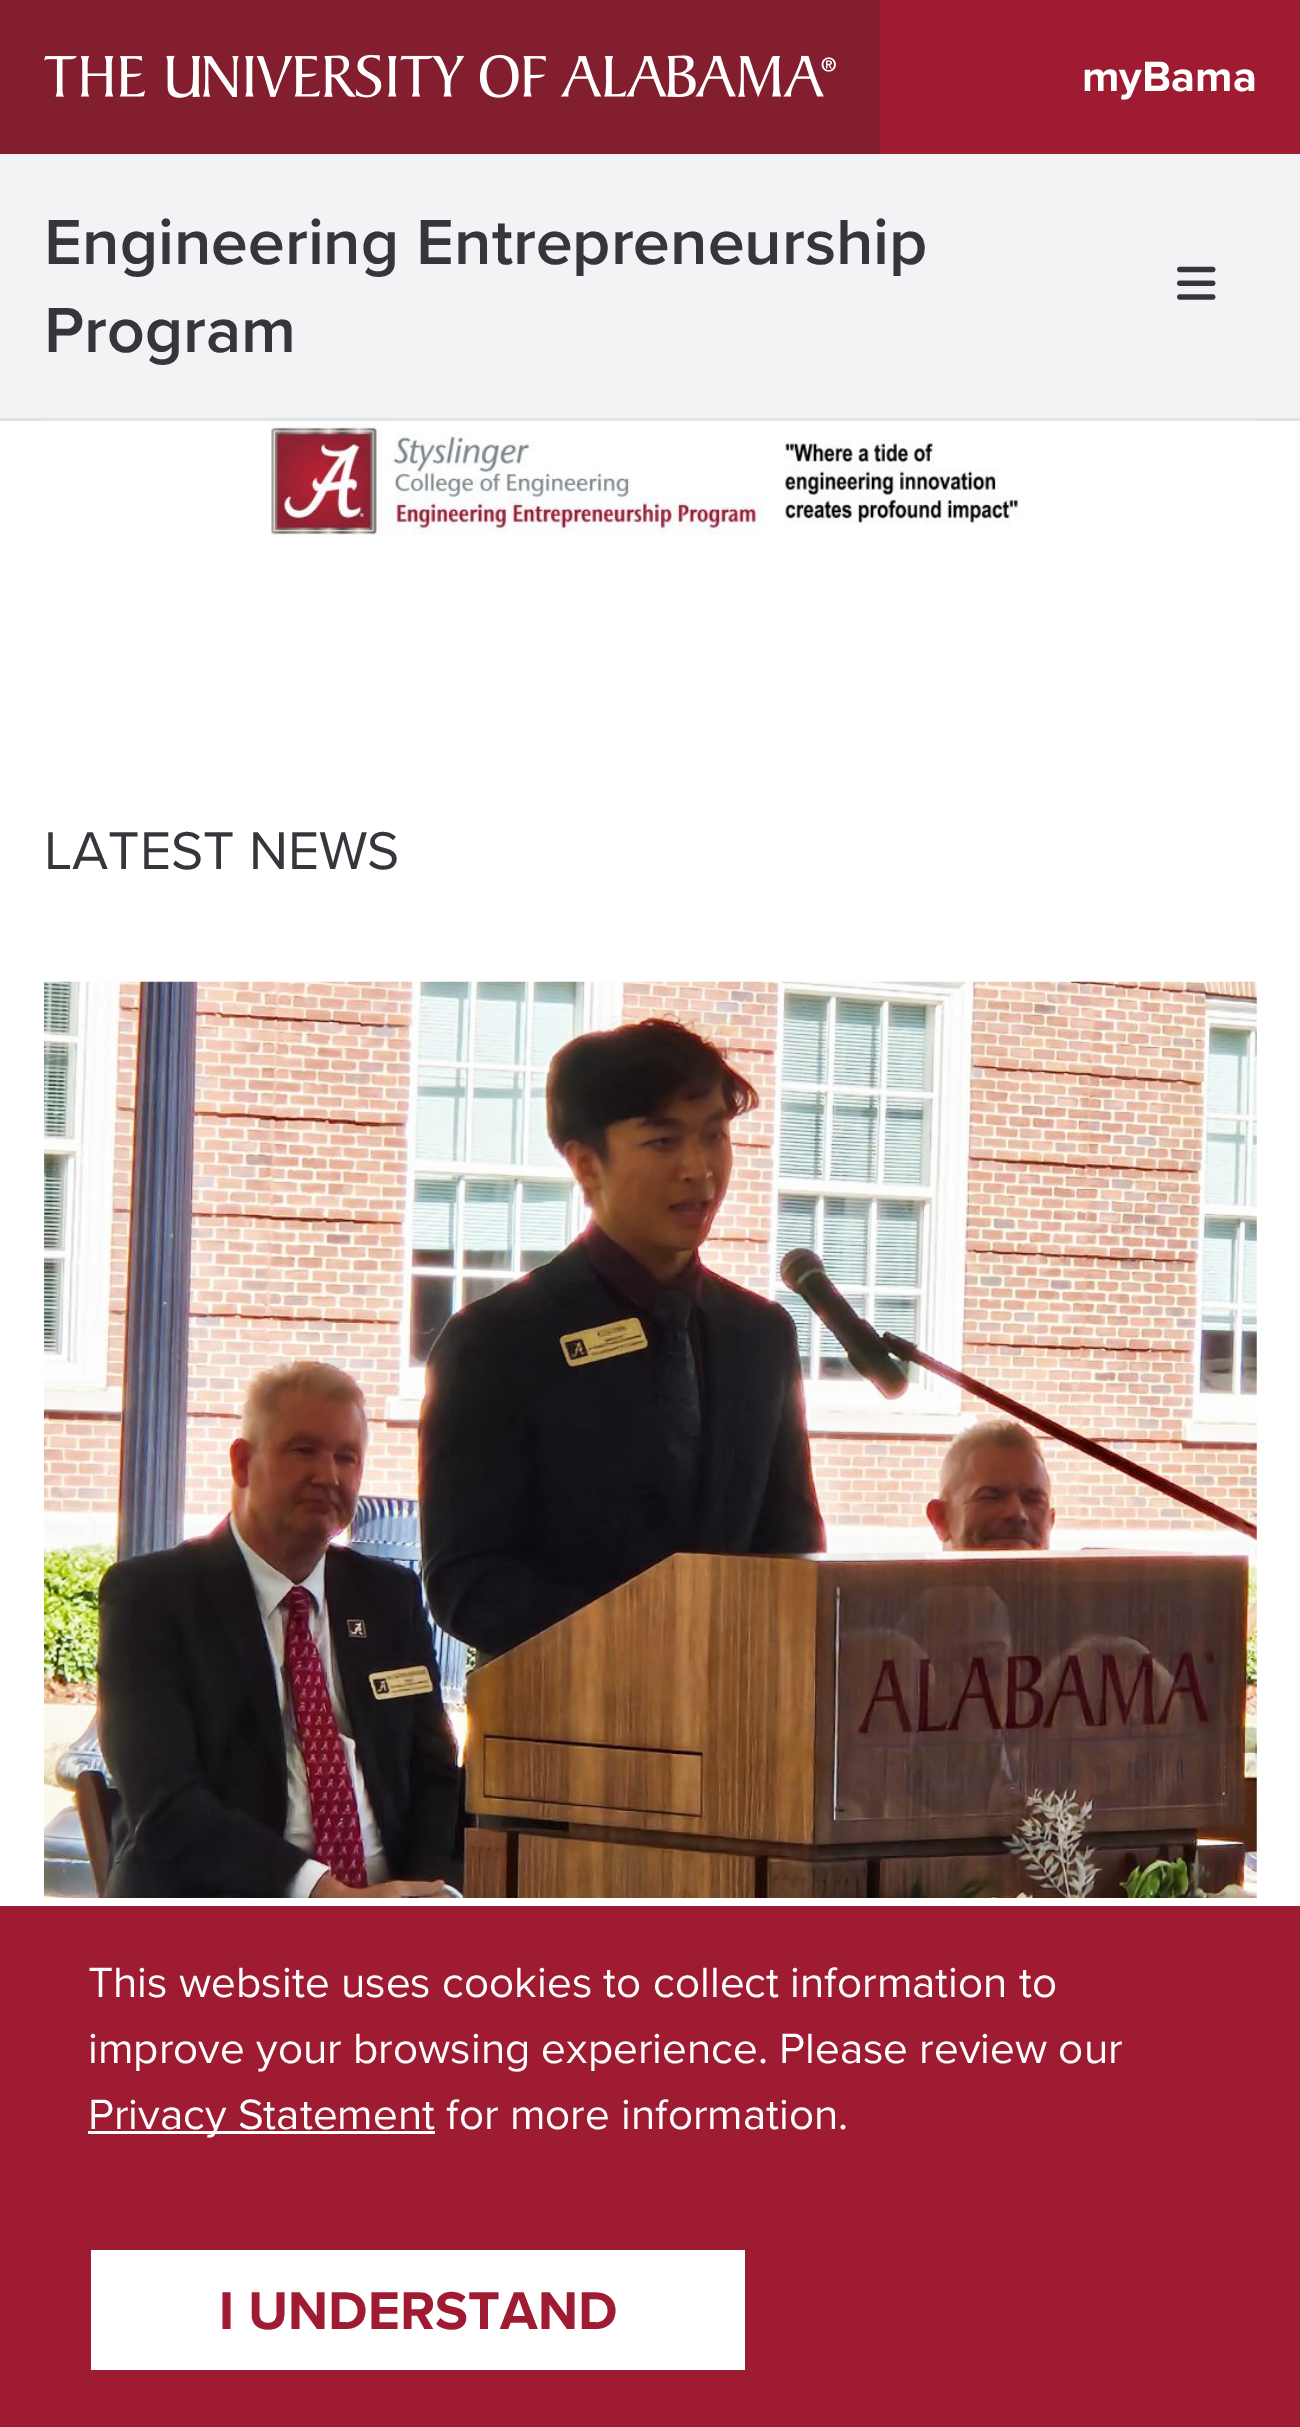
%!PS
<< /PageSize [1300 2427] >> setpagedevice
/rgb { dup -16 bitshift 255 div exch dup -8 bitshift 255 and 255 div exch 255 and 255 div setrgbcolor } def
/font { [ exch dup neg 0 0 3 -1 roll 0 0 ] selectfont } def
/text { moveto show } def
/picture { 5 dict begin { /h /w /y /x /name } { exch def } forall
  gsave x y translate w h scale
  w h 8 [w 0 0 h 0 0] name (r) file false 3 colorimage grestore end } def
0 2427 translate 1 -1 scale
4 setmiterlimit
/s1 { /ProximaNova-Bold 44 font 16#FFFFFF rgb } def
/s2 { /ProximaNova-SemiBold 66 font 16#35363B rgb } def
/s3 { /ProximaNova-Regular 55 font 16#35363B rgb } def
/s4 { /ProximaNova-Regular 44 font 16#FFFFFF rgb } def
/s5 { /ProximaNova-Bold 55 font 16#9E1B32 rgb } def
16#FFFFFF rgb
0 0 1300 2427 rectfill
16#9E1B32 rgb
880 0 420 154 rectfill
16#821E2E rgb
0 0 880 154 rectfill
(pic1.raw) 44 55 792 43 picture
s1
(myBama) 1082 91 text
16#F2F3F4 rgb
0 154 1300 264 rectfill
16#DFE2E5 rgb
0 418 1300 3 rectfill
s2
(Engineering Entrepreneurship) 44 264 text
(Program) 44 352 text
(pic2.raw) 1177 266 39 34 picture
(pic3.raw) 44 420 1213 115 picture
s3
(LATEST NEWS) 44 869 text
(pic4.raw) 44 981 1213 917 picture
16#9E1B32 rgb
0 1906 1300 521 rectfill
s4
(This website uses cookies to collect information to) 88 1997 text
(improve your browsing experience. Please review our) 88 2063 text
88 2131 347 3 rectfill
(Privacy Statement for more information.) 88 2129 text
91 2250 654 120 rectfill
s5
(I UNDERSTAND) 219 2329 text
showpage
